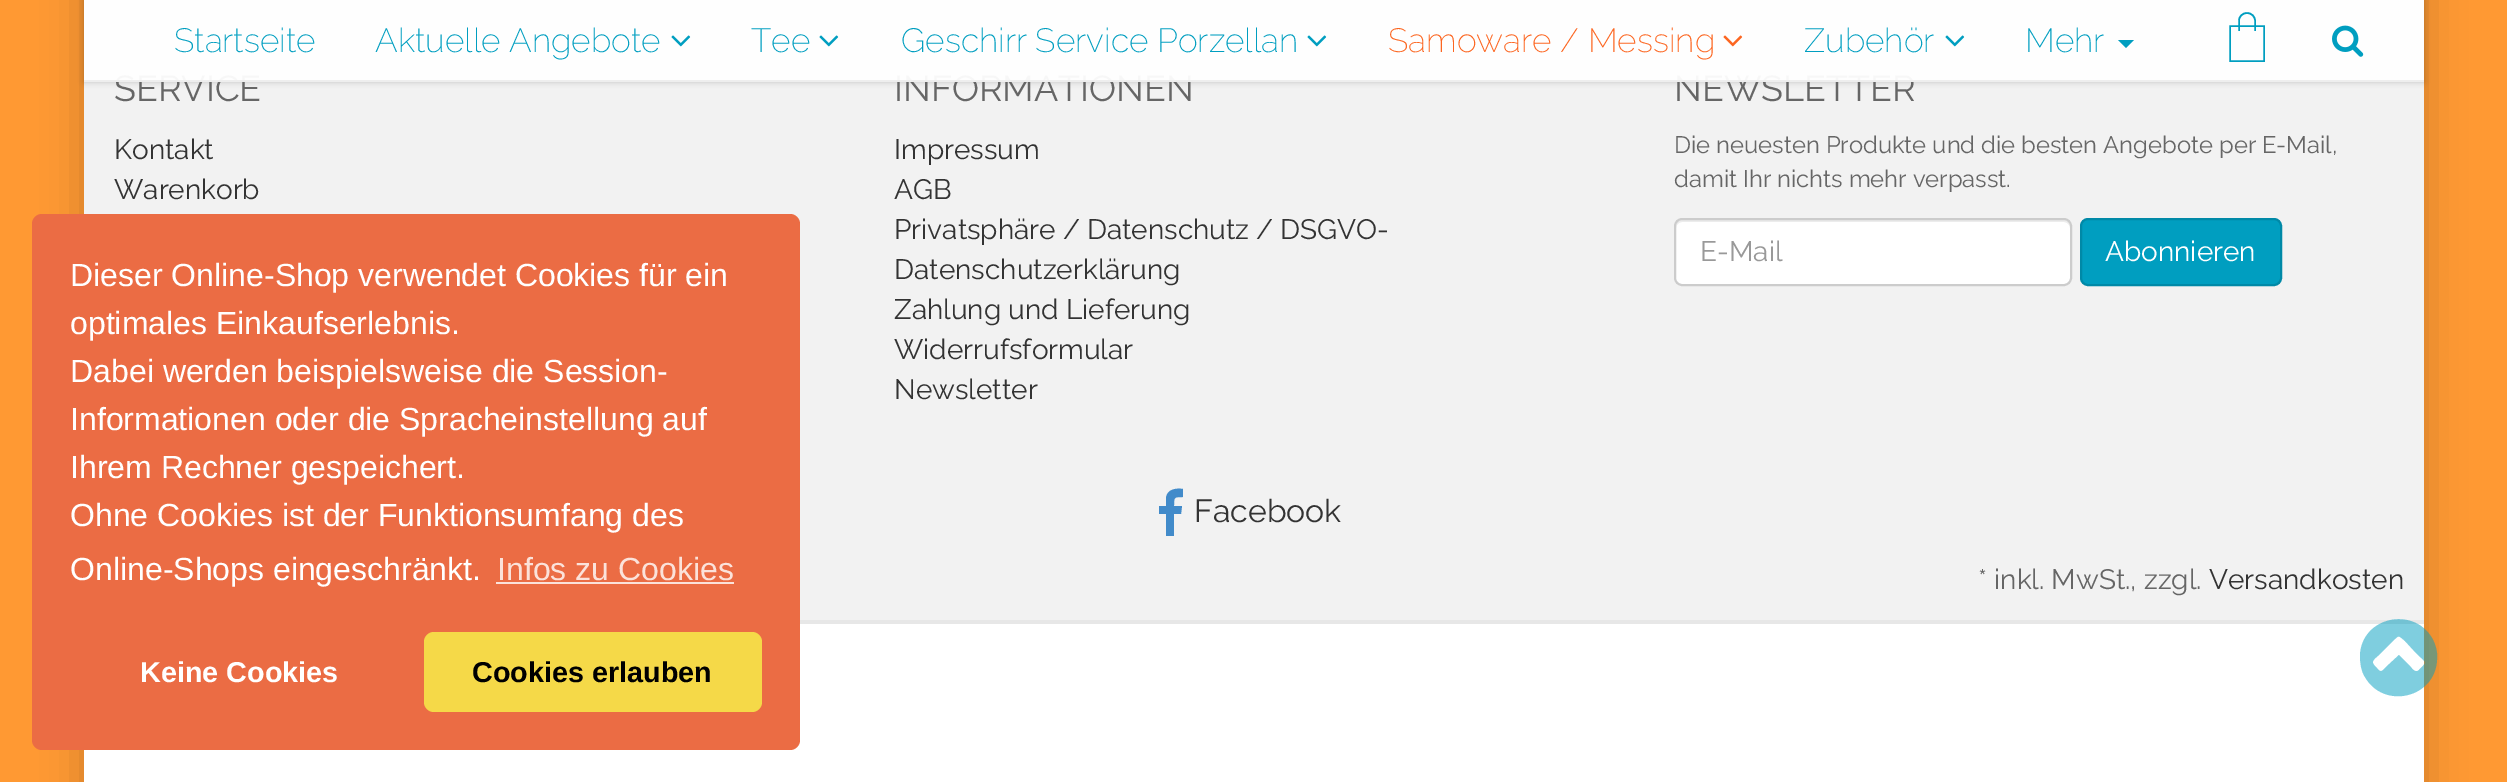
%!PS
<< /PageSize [2507 782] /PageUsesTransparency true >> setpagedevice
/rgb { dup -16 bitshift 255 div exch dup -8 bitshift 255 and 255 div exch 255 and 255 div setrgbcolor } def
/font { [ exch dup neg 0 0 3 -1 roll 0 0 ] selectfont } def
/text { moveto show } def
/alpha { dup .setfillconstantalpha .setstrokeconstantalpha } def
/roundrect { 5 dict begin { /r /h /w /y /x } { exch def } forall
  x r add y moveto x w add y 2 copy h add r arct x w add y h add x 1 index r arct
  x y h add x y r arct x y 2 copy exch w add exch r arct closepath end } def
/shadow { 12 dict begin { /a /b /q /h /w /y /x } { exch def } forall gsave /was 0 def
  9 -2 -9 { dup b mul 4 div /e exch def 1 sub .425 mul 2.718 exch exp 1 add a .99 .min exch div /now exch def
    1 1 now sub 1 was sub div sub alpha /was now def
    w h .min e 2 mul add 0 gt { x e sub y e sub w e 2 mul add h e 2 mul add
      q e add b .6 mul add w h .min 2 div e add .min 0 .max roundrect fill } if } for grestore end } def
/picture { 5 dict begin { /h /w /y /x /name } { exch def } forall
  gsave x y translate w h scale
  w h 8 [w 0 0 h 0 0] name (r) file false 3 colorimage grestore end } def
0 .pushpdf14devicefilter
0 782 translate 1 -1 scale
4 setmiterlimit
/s1 { /Raleway-Regular 36 font 16#666666 rgb } def
/s2 { /Raleway-ExtraLight 33.6 font 16#009EC0 rgb } def
/s3 { /Raleway-ExtraLight 33.6 font 16#FC6621 rgb } def
/s4 { /Raleway-Regular 28 font 16#333333 rgb } def
/s5 { /Raleway-Regular 23.8 font 16#666666 rgb } def
/s6 { /Raleway-Regular 28 font 16#999999 rgb } def
/s7 { /Raleway-Regular 28 font 16#FFFFFF rgb } def
/s8 { /Raleway-Regular 32 font 16#333333 rgb } def
/s9 { /Raleway-Regular 28 font 16#666666 rgb } def
/s10 { /LiberationSans-Regular 32 font 16#FFFFFF rgb } def
/s11 { /LiberationSans-Regular 32 font 16#FBE2DA rgb } def
/s12 { /LiberationSans-Bold 28.75 font 16#FFFFFF rgb } def
/s13 { /LiberationSans-Bold 28.75 font 16#000000 rgb } def
16#FF9933 rgb
0 0 2507 782 rectfill
16#000000 rgb
84 -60 2340 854 0 20 0.2 shadow
16#F2F2F2 rgb
84 0 2340 620 rectfill
gsave
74 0 moveto 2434 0 lineto 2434 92 lineto 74 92 lineto closepath 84 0 moveto 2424 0 lineto 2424 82 lineto 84 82 lineto closepath eoclip newpath
16#000000 rgb
84 0 2340 82 0 3 0.2 shadow
grestore
s1
(SERVICE) 114 101 text
(INFORMATIONEN) 894 101 text
(NEWSLETTER) 1674 101 text
0.95 alpha
16#FFFFFF rgb
84 0 2340 80 rectfill
1 alpha
16#EEEEEE rgb
84 80 2340 2 rectfill
s2
(Startseite) 174 52 text
(Aktuelle Angebote) 375 52 text
(pic1.raw) 671 35 20 12 picture
(Tee) 751 52 text
(pic1.raw) 819 35 20 12 picture
(Geschirr Service Porzellan) 901 52 text
(pic1.raw) 1307 35 20 12 picture
s3
(Samoware / Messing) 1388 52 text
(pic2.raw) 1723 35 20 12 picture
s2
(Zubehör) 1804 52 text
(pic1.raw) 1945 35 20 12 picture
(Mehr) 2025 52 text
2118 40 moveto 2134 40 lineto 2126 48 lineto closepath fill
1.6 setlinewidth
2256.5 26 moveto 2264 26 lineto 2264 61 lineto 2230 61 lineto 2230 26 lineto 2237.5 26 lineto closepath 2239 31 moveto 2239 20.5 lineto 2239 16.5 2242.5 13 2247 13 curveto 2251.5 13 2255 16.5 2255 20.5 curveto 2255 31 lineto stroke
(pic3.raw) 2332 25 32 32 picture
16#E7E7E7 rgb
800 620 1624 4 rectfill
s4
(Kontakt) 114 159 text
(Warenkorb) 114 199 text
(Impressum) 894 159 text
(AGB) 894 199 text
(Privatsphäre / Datenschutz / DSGVO-) 894 239 text
(Datenschutzerklärung) 894 279 text
(Zahlung und Lieferung) 894 319 text
(Widerrufsformular) 894 359 text
(Newsletter) 894 399 text
s5
(Die neuesten Produkte und die besten Angebote per E-Mail,) 1674 153 text
(damit Ihr nichts mehr verpasst.) 1674 187 text
16#FFFFFF rgb
1674 218 398 68 8 roundrect fill
16#ECECEC rgb
1682 222 moveto 2064 222 lineto 2067 222 2070 225 2070 228 curveto 2070 224 2069 220 2064 220 curveto 1682 220 lineto 1677 220 1676 224 1676 228 curveto 1676 225 1679 222 1682 222 curveto closepath fill
16#CCCCCC rgb
2 setlinewidth
1675 219 396 66 7 roundrect stroke
s6
(E-Mail) 1700 261 text
16#009EC0 rgb
2081 219 200 66 7 roundrect gsave fill grestore
16#0089A7 rgb
stroke
s7
(Abonnieren) 2105 261 text
16#428BCA rgb
1183 489 moveto 1183 497 lineto 1174 497 1174 497 1174 506 curveto 1182 506 lineto 1181 514 lineto 1174 514 lineto 1174 536 lineto 1166 536 lineto 1166 514 lineto 1159 514 lineto 1159 506 lineto 1166 506 lineto 1166 498 lineto 1167 489 1176 488 1183 489 curveto closepath fill
s8
(Facebook) 1194 522 text
s9
(* inkl. MwSt., zzgl.) 1978 589 text
s4
(Versandkosten) 2209 589 text
16#FFFFFF rgb
84 624 2340 158 rectfill
0.5 alpha
16#009EC0 rgb
2419 670 moveto 2428 661 2426 663 2416 653 curveto 2405 641 lineto 2398 635 2399 635 2393 641 curveto 2381 653 lineto 2375 659 2369 661 2376 667 curveto 2380 672 2381 673 2386 667 curveto 2399 655 lineto 2409 665 lineto 2411 667 2415 674 2419 670 curveto closepath 2432 638 moveto 2436 645 2438 653 2437 660 curveto 2435 698 2384 710 2365 677 curveto 2361 671 2360 663 2360 655 curveto 2362 617 2413 606 2432 638 curveto closepath fill
1 alpha
16#EB6C44 rgb
32 214 768 536 10 roundrect fill
s10
(Dieser Online-Shop verwendet Cookies für ein) 70 286 text
(optimales Einkaufserlebnis.) 70 334 text
(Dabei werden beispielsweise die Session-) 70 382 text
(Informationen oder die Spracheinstellung auf) 70 430 text
(Ihrem Rechner gespeichert.) 70 478 text
(Ohne Cookies ist der Funktionsumfang des) 70 526 text
(Online-Shops eingeschränkt.) 70 580 text
s11
(Infos zu Cookies) 497 580 text
496 582 238 2 rectfill
s12
(Keine Cookies) 140 682 text
16#F5D948 rgb
424 632 338 80 10 roundrect fill
s13
(Cookies erlauben) 472 682 text
.poppdf14devicefilter showpage
